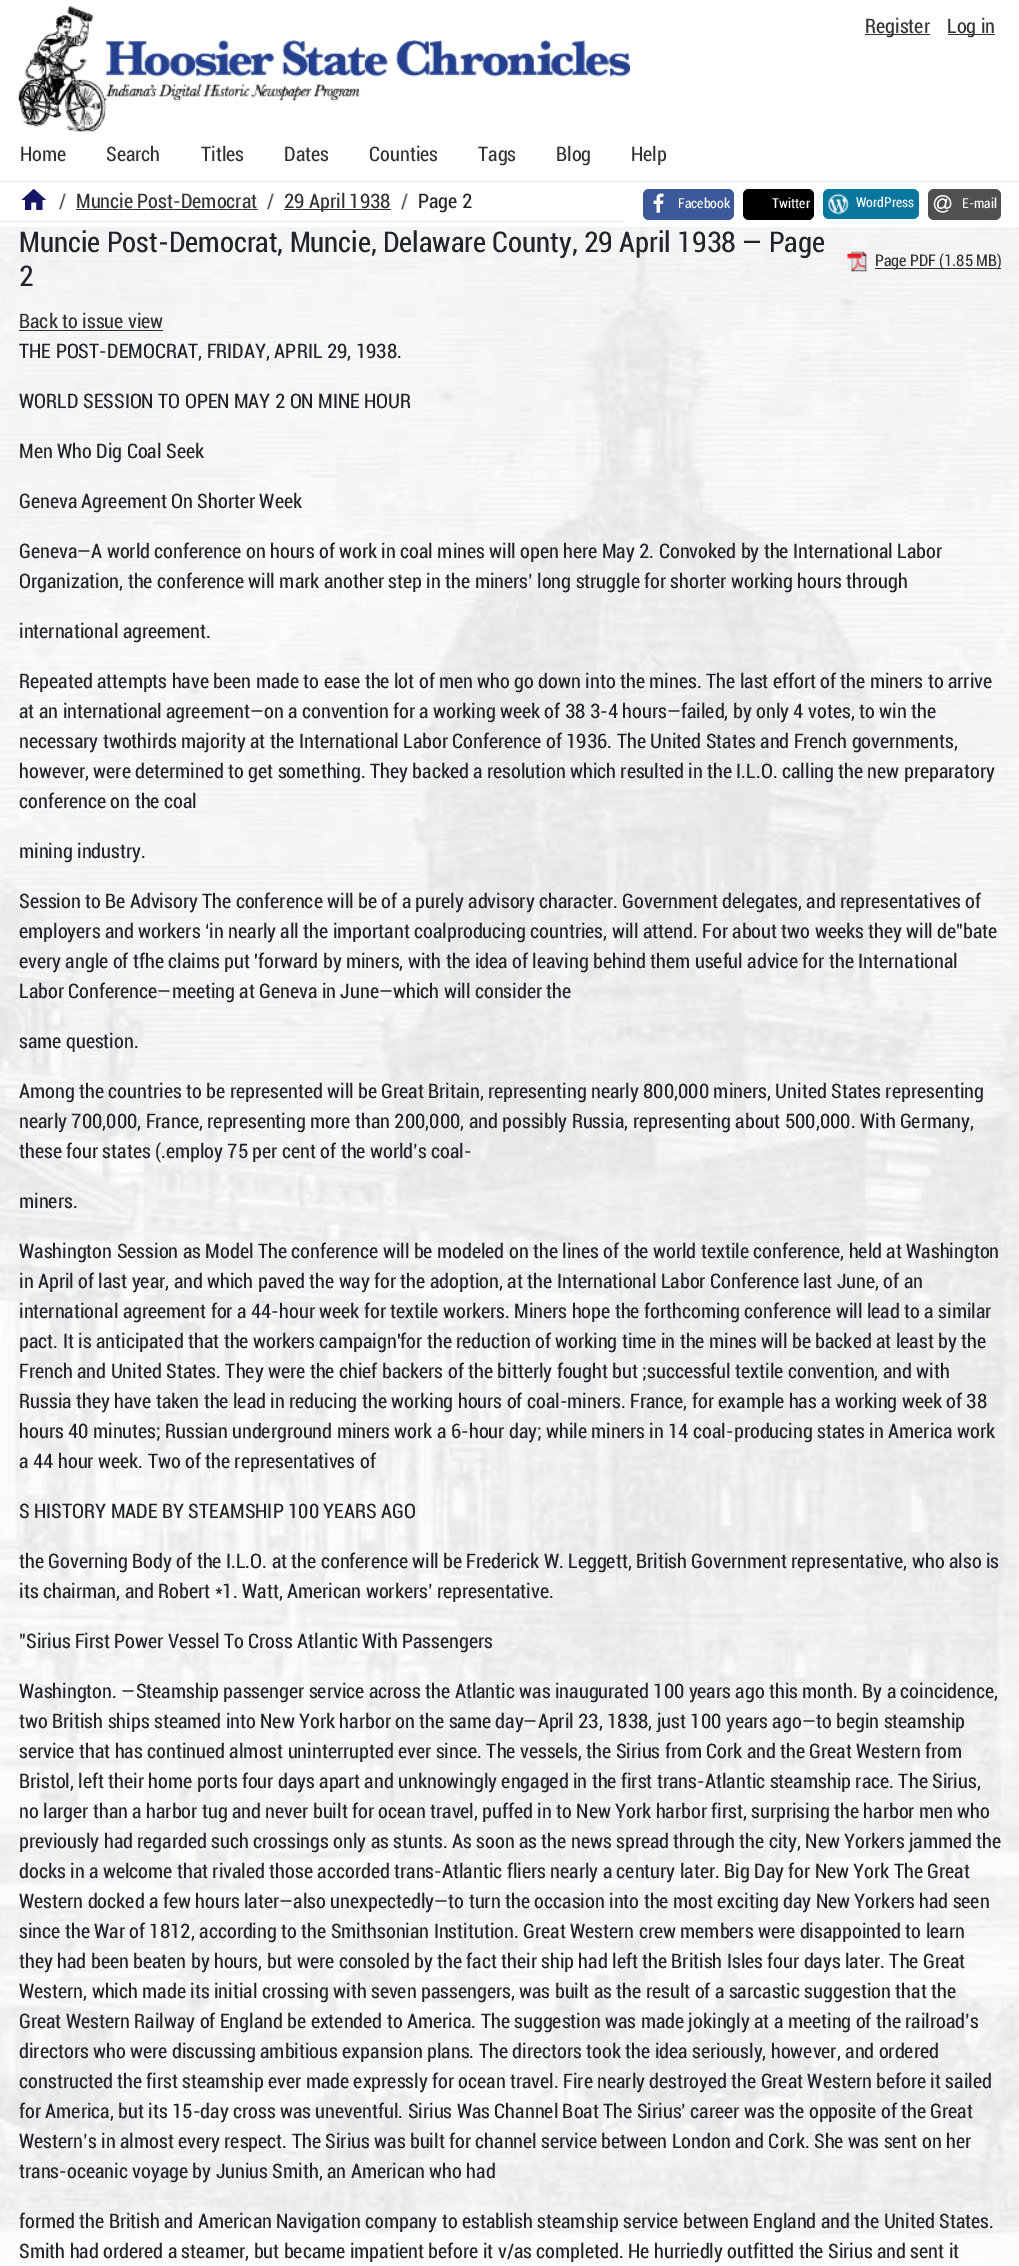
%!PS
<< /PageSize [1019 2266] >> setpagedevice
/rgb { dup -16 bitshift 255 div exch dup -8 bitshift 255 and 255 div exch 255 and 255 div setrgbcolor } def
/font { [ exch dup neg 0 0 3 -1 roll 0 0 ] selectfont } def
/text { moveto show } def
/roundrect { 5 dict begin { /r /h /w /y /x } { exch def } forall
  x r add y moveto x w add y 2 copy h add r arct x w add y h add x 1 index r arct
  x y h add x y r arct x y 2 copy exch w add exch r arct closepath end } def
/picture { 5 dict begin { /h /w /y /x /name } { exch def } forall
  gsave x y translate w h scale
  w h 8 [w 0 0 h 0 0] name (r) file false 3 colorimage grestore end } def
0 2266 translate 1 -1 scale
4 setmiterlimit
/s1 { /Roboto-Regular 20 font 16#333333 rgb } def
/s2 { /Roboto-Regular 20 font 16#595C5F rgb } def
/s3 { /Roboto-Regular 20 font 16#212529 rgb } def
/s4 { /Roboto-Regular 13.75 font 16#FFFFFF rgb } def
/s5 { /Roboto-Regular 28.55 font 16#212529 rgb } def
/s6 { /Roboto-Regular 16 font 16#333333 rgb } def
16#FFFFFF rgb
0 0 1019 2266 rectfill
16#333333 rgb
865 34 65 1 rectfill
s1
(Register) 865 33 text
948 34 47 1 rectfill
(Log in) 947 33 text
16#E9ECEF rgb
0 181 1019 1 rectfill
(pic1.raw) 18 6 612 126 picture
s1
(Home) 20 161 text
(Search) 106 161 text
(Titles) 201 161 text
(Dates) 284 161 text
(Counties) 369 161 text
(Tags) 478 161 text
(Blog) 556 161 text
(Help) 631 161 text
16#E9ECEF rgb
0 221 624 1 rectfill
(pic2.raw) 21 188 26 22 picture
s2
(/) 59 208 text
s1
(Muncie Post-Democrat) 76 208 text
76 209 182 1 rectfill
s2
(/) 267 208 text
16#333333 rgb
284 209 107 1 rectfill
(29 April 1938) 284 208 text
s2
(/) 401 208 text
s3
(Page 2) 418 208 text
16#3B5998 rgb
643 189 91 31 6 roundrect fill
(pic3.raw) 653 193 11 20 picture
s4
(Facebook) 678 208 text
16#000000 rgb
743 189 71 31 6 roundrect fill
s4
(Twitter) 772 208 text
16#09769D rgb
823 189 96 30 6 roundrect fill
(pic4.raw) 828 193 21 22 picture
s4
(WordPress) 856 207 text
16#505050 rgb
928 189 73 31 6 roundrect fill
(pic5.raw) 933 195 19 18 picture
s4
(E-mail) 962 208 text
(pic6.raw) 0 227 1019 2035 picture
s5
(Muncie Post-Democrat, Muncie, Delaware County, 29 April 1938 — Page) 19 252 text
(2) 19 286 text
(pic7.raw) 847 251 20 21 picture
16#333333 rgb
875 268 126 1 rectfill
s6
(Page PDF \(1.85 MB\)) 875 266 text
s1
(Back to issue view) 19 328 text
19 330 144 1 rectfill
s3
(THE POST-DEMOCRAT, FRIDAY, APRIL 29, 1938.) 19 358 text
(WORLD SESSION TO OPEN MAY 2 ON MINE HOUR) 19 408 text
(Men Who Dig Coal Seek) 19 458 text
(Geneva Agreement On Shorter Week) 19 508 text
(Geneva—A world conference on hours of work in coal mines will open here May 2. Convoked by the International Labor) 19 558 text
(Organization, the conference will mark another step in the miners’ long struggle for shorter working hours through) 19 588 text
(international agreement.) 19 638 text
(Repeated attempts have been made to ease the lot of men who go down into the mines. The last effort of the miners to arrive) 19 688 text
(at an international agreement—on a convention for a working week of 38 3-4 hours—failed, by only 4 votes, to win the) 19 718 text
(necessary twothirds majority at the International Labor Conference of 1936. The United States and French governments,) 19 748 text
(however, were determined to get something. They backed a resolution which resulted in the I.L.O. calling the new preparatory) 19 778 text
(conference on the coal) 19 808 text
(mining industry.) 19 858 text
(Session to Be Advisory The conference will be of a purely advisory character. Government delegates, and representatives of) 19 908 text
(employers and workers ‘in nearly all the important coalproducing countries, will attend. For about two weeks they will de"bate) 19 938 text
(every angle of tfhe claims put 'forward by miners, with the idea of leaving behind them useful advice for the International) 19 968 text
(Labor Conference—meeting at Geneva in June—which will consider the) 19 998 text
(same question.) 19 1048 text
(Among the countries to be represented will be Great Britain, representing nearly 800,000 miners, United States representing) 19 1098 text
(nearly 700,000, France, representing more than 200,000, and possibly Russia, representing about 500,000. With Germany,) 19 1128 text
(these four states \(.employ 75 per cent of the world’s coal-) 19 1158 text
(miners.) 19 1208 text
(Washington Session as Model The conference will be modeled on the lines of the world textile conference, held at Washington) 19 1258 text
(in April of last year, and which paved the way for the adoption, at the International Labor Conference last June, of an) 19 1288 text
(international agreement for a 44-hour week for textile workers. Miners hope the forthcoming conference will lead to a similar) 19 1318 text
(pact. It is anticipated that the workers campaign'for the reduction of working time in the mines will be backed at least by the) 19 1348 text
(French and United States. They were the chief backers of the bitterly fought but ;successful textile convention, and with) 19 1378 text
(Russia they have taken the lead in reducing the working hours of coal-miners. France, for example has a working week of 38) 19 1408 text
(hours 40 minutes; Russian underground miners work a 6-hour day; while miners in 14 coal-producing states in America work) 19 1438 text
(a 44 hour week. Two of the representatives of) 19 1468 text
(S HISTORY MADE BY STEAMSHIP 100 YEARS AGO) 19 1518 text
(the Governing Body of the I.L.O. at the conference will be Frederick W. Leggett, British Government representative, who also is) 19 1568 text
(its chairman, and Robert *1. Watt, American workers’ representative.) 19 1598 text
("Sirius First Power Vessel To Cross Atlantic With Passengers) 19 1648 text
(Washington. —Steamship passenger service across the Atlantic was inaugurated 100 years ago this month. By a coincidence,) 19 1698 text
(two British ships steamed into New York harbor on the same day—April 23, 1838, just 100 years ago—to begin steamship) 19 1728 text
(service that has continued almost uninterrupted ever since. The vessels, the Sirius from Cork and the Great Western from) 19 1758 text
(Bristol, left their home ports four days apart and unknowingly engaged in the first trans-Atlantic steamship race. The Sirius,) 19 1788 text
(no larger than a harbor tug and never built for ocean travel, puffed in to New York harbor first, surprising the harbor men who) 19 1818 text
(previously had regarded such crossings only as stunts. As soon as the news spread through the city, New Yorkers jammed the) 19 1848 text
(docks in a welcome that rivaled those accorded trans-Atlantic fliers nearly a century later. Big Day for New York The Great) 19 1878 text
(Western docked a few hours later—also unexpectedly—to turn the occasion into the most exciting day New Yorkers had seen) 19 1908 text
(since the War of 1812, according to the Smithsonian Institution. Great Western crew members were disappointed to learn) 19 1938 text
(they had been beaten by hours, but were consoled by the fact their ship had left the British Isles four days later. The Great) 19 1968 text
(Western, which made its initial crossing with seven passengers, was built as the result of a sarcastic suggestion that the) 19 1998 text
(Great Western Railway of England be extended to America. The suggestion was made jokingly at a meeting of the railroad’s) 19 2028 text
(directors who were discussing ambitious expansion plans. The directors took the idea seriously, however, and ordered) 19 2058 text
(constructed the first steamship ever made expressly for ocean travel. Fire nearly destroyed the Great Western before it sailed) 19 2088 text
(for America, but its 15-day cross was uneventful. Sirius Was Channel Boat The Sirius’ career was the opposite of the Great) 19 2118 text
(Western’s in almost every respect. The Sirius was built for channel service between London and Cork. She was sent on her) 19 2148 text
(trans-oceanic voyage by Junius Smith, an American who had) 19 2178 text
(formed the British and American Navigation company to establish steamship service between England and the United States.) 19 2228 text
(Smith had ordered a steamer, but became impatient before it v/as completed. He hurriedly outfitted the Sirius and sent it) 19 2258 text
showpage
